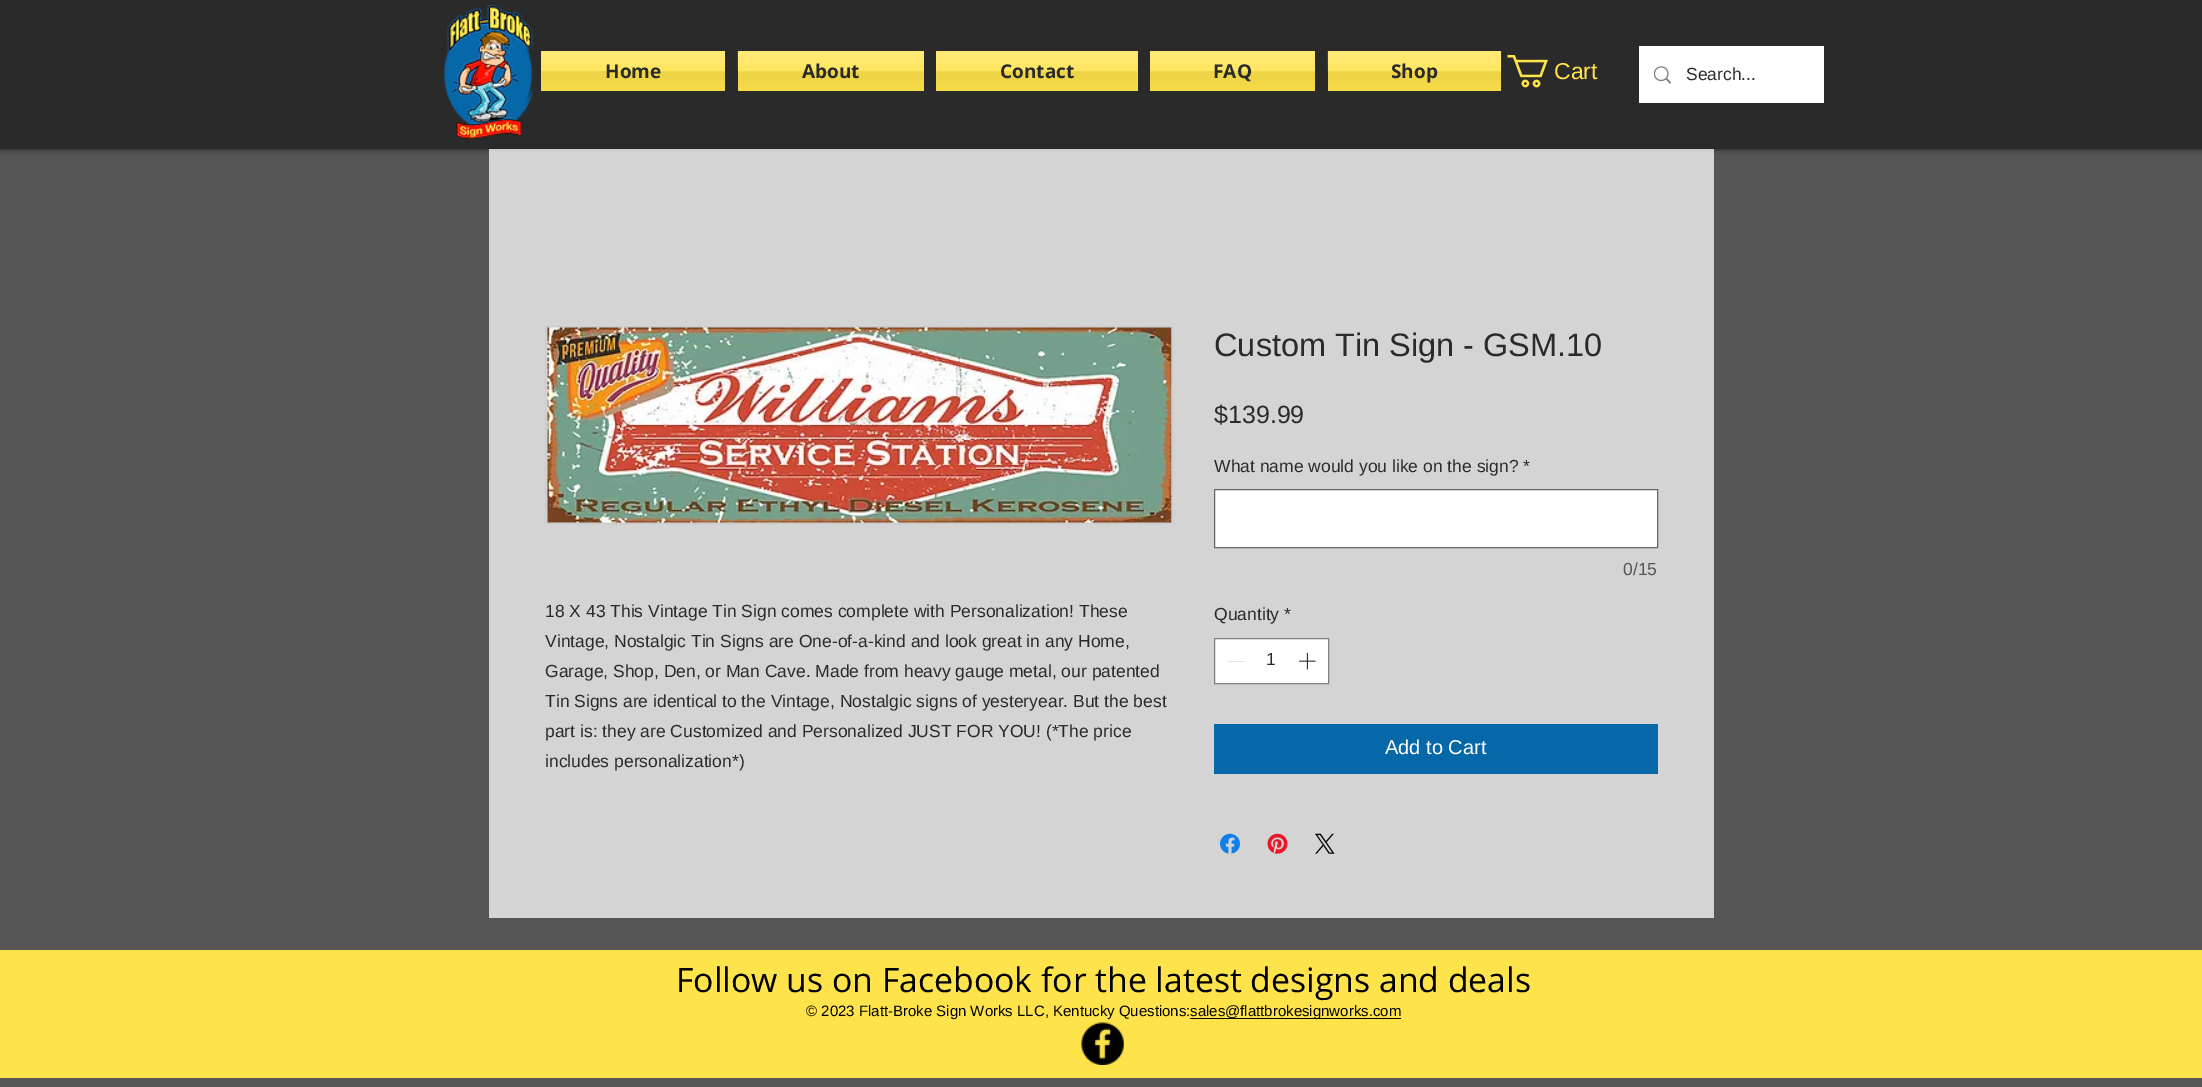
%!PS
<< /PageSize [2202 1087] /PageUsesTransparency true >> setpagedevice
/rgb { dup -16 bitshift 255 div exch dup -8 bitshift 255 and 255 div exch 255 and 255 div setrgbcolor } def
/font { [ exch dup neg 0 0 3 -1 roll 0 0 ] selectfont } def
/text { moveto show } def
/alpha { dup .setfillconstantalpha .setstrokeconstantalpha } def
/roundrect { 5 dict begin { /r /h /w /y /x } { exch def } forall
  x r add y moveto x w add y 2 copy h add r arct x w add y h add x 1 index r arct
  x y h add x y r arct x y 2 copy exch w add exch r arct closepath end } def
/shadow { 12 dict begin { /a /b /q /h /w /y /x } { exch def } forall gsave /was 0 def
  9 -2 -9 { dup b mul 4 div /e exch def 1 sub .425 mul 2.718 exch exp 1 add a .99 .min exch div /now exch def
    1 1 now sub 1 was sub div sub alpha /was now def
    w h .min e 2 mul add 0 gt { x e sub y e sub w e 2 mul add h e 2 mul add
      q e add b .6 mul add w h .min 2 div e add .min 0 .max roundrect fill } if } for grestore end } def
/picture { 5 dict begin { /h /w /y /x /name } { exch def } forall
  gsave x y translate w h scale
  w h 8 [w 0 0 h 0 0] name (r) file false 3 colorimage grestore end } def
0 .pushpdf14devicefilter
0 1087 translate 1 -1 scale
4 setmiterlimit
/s1 { /OpenSans-Bold 19 font 16#2A2A2A rgb } def
/s2 { /LiberationSans-Regular 23 font 16#FFE34B rgb } def
/s3 { /LiberationSans-Regular 17.5 font 16#2A2A2A rgb } def
/s4 { /LiberationSans-Regular 32.5 font 16#2A2A2A rgb } def
/s5 { /LiberationSans-Regular 25 font 16#2A2A2A rgb } def
/s6 { /LiberationSans-Regular 17.5 font 16#555555 rgb } def
/s7 { /LiberationSans-Regular 20 font 16#FFFFFF rgb } def
/s8 { /OpenSans-Regular 33.75 font 16#000000 rgb } def
/s9 { /LiberationSans-Regular 15 font 16#000000 rgb } def
16#555555 rgb
0 0 2202 1087 rectfill
16#000000 rgb
0 0 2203 149 0 3 0.7 shadow
16#2A2A2A rgb
0 0 2202 149 rectfill
(pic1.raw) 443 5 91 134 picture
16#FFE34B rgb
541 51 184 40 rectfill
(pic2.raw) 541 51 184 40 picture
s1
(Home) 605 78 text
16#FFE34B rgb
738 51 186 40 rectfill
(pic3.raw) 737 51 187 40 picture
s1
(About) 802 78 text
16#FFE34B rgb
936 51 202 40 rectfill
(pic4.raw) 936 51 202 40 picture
s1
(Contact) 1000 78 text
16#FFE34B rgb
1150 51 165 40 rectfill
(pic5.raw) 1150 51 165 40 picture
s1
(FAQ) 1213 78 text
16#FFE34B rgb
1328 51 173 40 rectfill
(pic6.raw) 1327 51 175 40 picture
s1
(Shop) 1391 78 text
(pic7.raw) 1507 55 41 33 picture
s2
(Cart) 1554 79 text
16#FFFFFF rgb
1639 46 185 57 rectfill
(pic8.raw) 1654 66 17 18 picture
s3
(Search...) 1686 80 text
0.75 alpha
16#FFFFFF rgb
489 149 1225 769 rectfill
1 alpha
16#CCCCCC rgb
545.5 326.5 627 197 rectstroke
(pic9.raw) 547 327 625 196 picture
s3
(18 X 43 This Vintage Tin Sign comes complete with Personalization! These) 545 617 text
(Vintage, Nostalgic Tin Signs are One-of-a-kind and look great in any Home,) 545 647 text
(Garage, Shop, Den, or Man Cave. Made from heavy gauge metal, our patented) 545 677 text
(Tin Signs are identical to the Vintage, Nostalgic signs of yesteryear. But the best) 545 707 text
(part is: they are Customized and Personalized JUST FOR YOU! \(*The price) 545 737 text
(includes personalization*\)) 545 767 text
s4
(Custom Tin Sign - GSM.10) 1214 356 text
s5
($139.99) 1214 423 text
s3
(What name would you like on the sign? *) 1214 472 text
16#FFFFFF rgb
1214.5 489.5 moveto 1657.5 489.5 lineto 1657.5 547.5 lineto 1214.5 547.5 lineto closepath gsave fill grestore
16#666666 rgb
stroke
s6
(0/15) 1623 575 text
s3
(Quantity *) 1214 620 text
16#FFFFFF rgb
1214.5 638.5 moveto 1328.5 638.5 lineto 1328.5 683.5 lineto 1214.5 683.5 lineto closepath gsave fill grestore
16#7F7F7F rgb
stroke
16#E3E3E3 rgb
1228 661 17 1 rectfill
s3
(1) 1266 665 text
(pic10.raw) 1299 652 17 18 picture
16#0768A9 rgb
1214 724 444 50 rectfill
s7
(Add to Cart) 1385 754 text
(pic11.raw) 1220 833 20 21 picture
(pic12.raw) 1267 833 21 21 picture
(pic13.raw) 1315 833 20 21 picture
16#FFE34B rgb
0 950 2202 128 rectfill
s8
(Follow us on Facebook for the latest designs and deals) 676 992 text
s9
(© 2023 Flatt-Broke Sign Works LLC, Kentucky Questions:) 806 1016 text
1190 1018 211 1 rectfill
(sales@flattbrokesignworks.com) 1190 1016 text
(pic14.raw) 1081 1022 43 43 picture
.poppdf14devicefilter showpage
